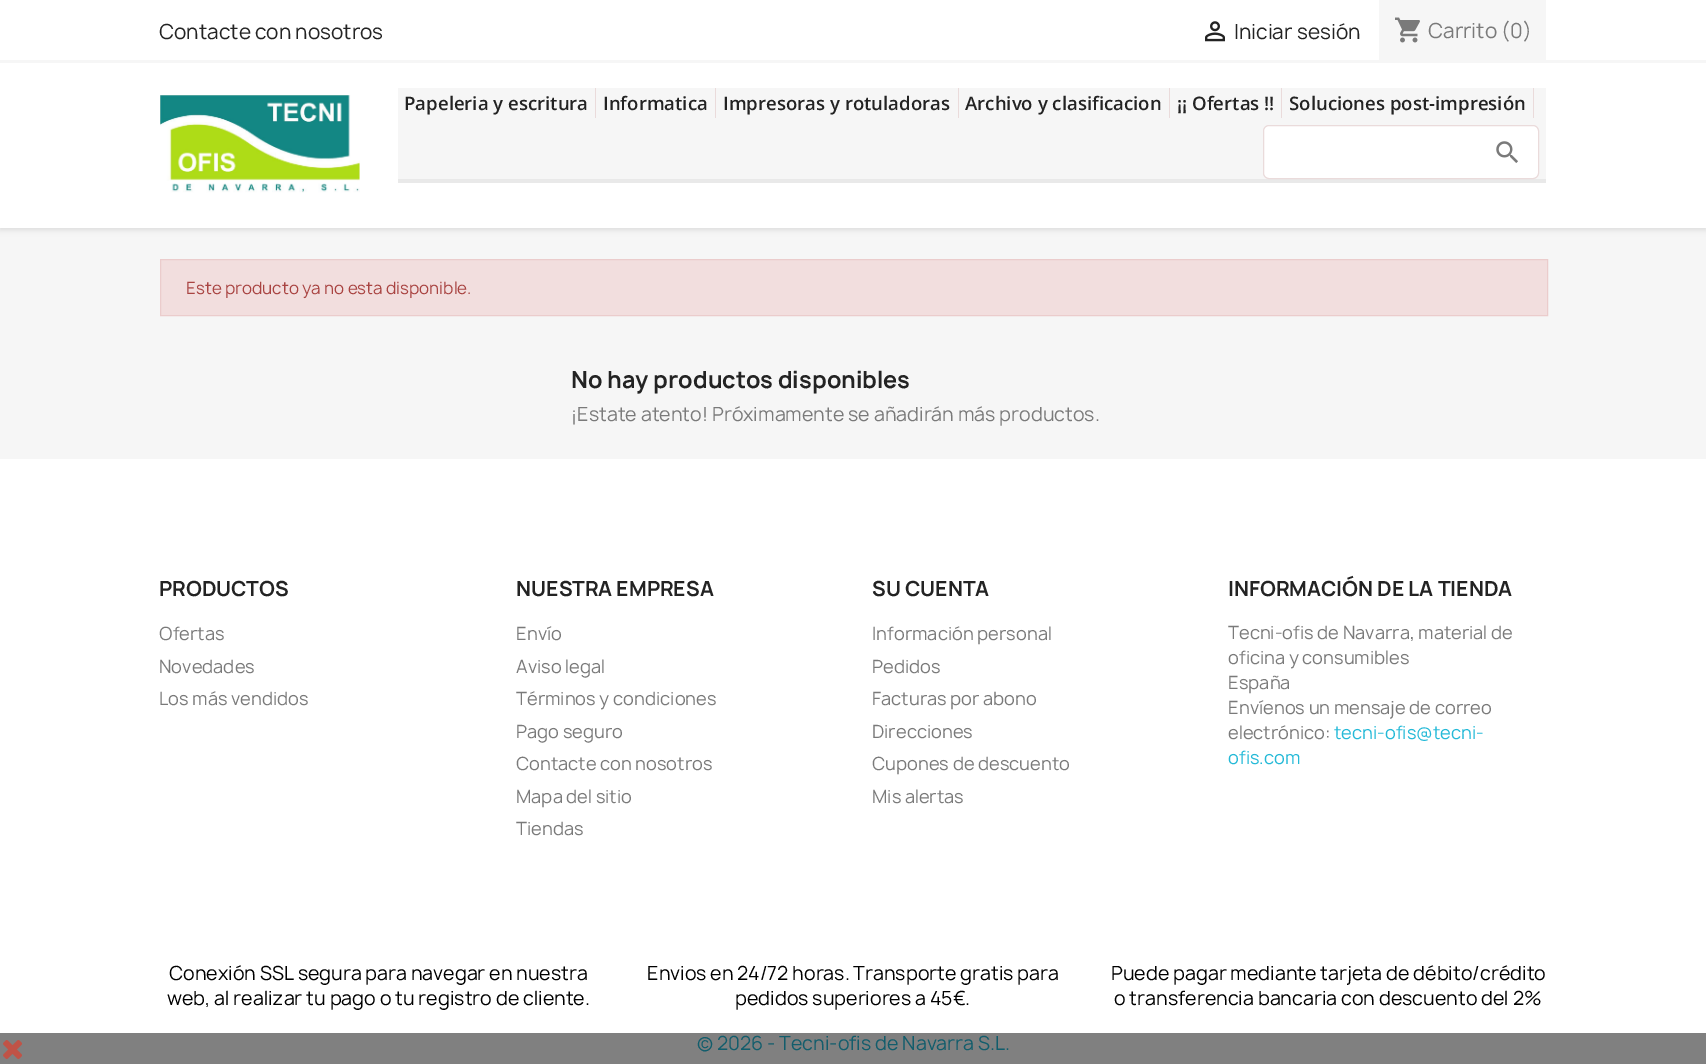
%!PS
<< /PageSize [1706 1064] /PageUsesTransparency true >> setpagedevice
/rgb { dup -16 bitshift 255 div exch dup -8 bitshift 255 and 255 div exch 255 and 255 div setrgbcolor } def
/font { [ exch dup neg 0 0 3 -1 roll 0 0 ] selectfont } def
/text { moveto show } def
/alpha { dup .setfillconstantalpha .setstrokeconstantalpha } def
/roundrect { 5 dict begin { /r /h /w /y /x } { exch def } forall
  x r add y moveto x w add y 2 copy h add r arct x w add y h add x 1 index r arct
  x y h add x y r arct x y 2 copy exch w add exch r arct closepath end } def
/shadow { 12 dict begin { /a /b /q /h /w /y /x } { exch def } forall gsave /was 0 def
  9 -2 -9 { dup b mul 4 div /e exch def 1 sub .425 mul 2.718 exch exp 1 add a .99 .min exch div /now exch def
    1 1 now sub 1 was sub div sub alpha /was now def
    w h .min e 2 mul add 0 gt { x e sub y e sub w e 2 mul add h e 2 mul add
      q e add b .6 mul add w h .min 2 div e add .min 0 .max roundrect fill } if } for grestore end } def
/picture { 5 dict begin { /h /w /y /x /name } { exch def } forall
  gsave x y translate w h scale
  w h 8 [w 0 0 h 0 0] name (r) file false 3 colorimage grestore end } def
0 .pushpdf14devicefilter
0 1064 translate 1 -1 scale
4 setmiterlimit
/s1 { /Manrope-Regular 20 font 16#232323 rgb } def
/s2 { /Manrope-Regular 20 font 16#7A7A7A rgb } def
/s3 { /OpenSans-SemiBold 18.6 font 16#232323 rgb } def
/s4 { /Manrope-Regular 16.25 font 16#A94442 rgb } def
/s5 { /Manrope-Bold 22.5 font 16#232323 rgb } def
/s6 { /Manrope-Regular 18.75 font 16#7A7A7A rgb } def
/s7 { /Manrope-Bold 20 font 16#232323 rgb } def
/s8 { /Manrope-Regular 17.5 font 16#7A7A7A rgb } def
/s9 { /Manrope-Regular 17.5 font 16#24B9D7 rgb } def
/s10 { /Manrope-Regular 18.75 font 16#000000 rgb } def
/s11 { /Manrope-Regular 18.75 font 16#125D6C rgb } def
16#FFFFFF rgb
0 0 1706 1064 rectfill
16#808080 rgb
0 1033 1706 31 rectfill
16#F6F6F6 rgb
0 228 1706 231 rectfill
16#000000 rgb
0 3 1706 227 0 3 0.11 shadow
16#FFFFFF rgb
0 0 1706 228 rectfill
16#F6F6F6 rgb
0 60 1706 3 rectfill
s1
(Contacte con nosotros) 159 39 text
(pic1.raw) 1205 21 20 21 picture
(Iniciar sesión) 1234 39 text
16#F6F6F6 rgb
1379 0 167 60 rectfill
(pic2.raw) 1395 17 25 26 picture
s2
(Carrito \(0\)) 1428 38 text
(pic3.raw) 160 95 200 98 picture
16#F6F6F6 rgb
398 88 1148 91 rectfill
16#E9E9E9 rgb
398 179 1148 4 rectfill
16#EADBDB rgb
595 88 1 30 rectfill
s3
(Papeleria y escritura) 404 110 text
16#EADBDB rgb
715 88 1 30 rectfill
s3
(Informatica) 603 110 text
16#EADBDB rgb
958 88 1 30 rectfill
s3
(Impresoras y rotuladoras) 723 110 text
16#EADBDB rgb
1169 88 1 30 rectfill
s3
(Archivo y clasificacion) 965 110 text
16#EADBDB rgb
1281 88 1 30 rectfill
s3
(¡¡ Ofertas !!) 1177 110 text
16#EADBDB rgb
1533 88 1 30 rectfill
s3
(Soluciones post-impresión) 1289 110 text
16#FFFFFF rgb
1263.5 125.5 275 53 5.5 roundrect gsave fill grestore
16#EADBDB rgb
stroke
(pic4.raw) 1496 141 22 22 picture
16#F2DEDE rgb
160.5 259.5 moveto 1547.5 259.5 lineto 1547.5 315.5 lineto 160.5 315.5 lineto closepath gsave fill grestore
16#EBCCCC rgb
stroke
s4
(Este producto ya no esta disponible.) 186 294 text
s5
(No hay productos disponibles) 571 388 text
s6
(¡Estate atento! Próximamente se añadirán más productos.) 571 421 text
s7
(PRODUCTOS) 159 596 text
s8
(Ofertas) 159 640 text
(Novedades) 159 673 text
(Los más vendidos) 159 705 text
s7
(NUESTRA EMPRESA) 516 596 text
s8
(Envío) 516 640 text
(Aviso legal) 516 673 text
(Términos y condiciones) 516 705 text
(Pago seguro) 516 738 text
(Contacte con nosotros) 516 770 text
(Mapa del sitio) 516 803 text
(Tiendas) 516 835 text
s7
(SU CUENTA) 872 596 text
s8
(Información personal) 872 640 text
(Pedidos) 872 673 text
(Facturas por abono) 872 705 text
(Direcciones) 872 738 text
(Cupones de descuento) 872 770 text
(Mis alertas) 872 803 text
s7
(INFORMACIÓN DE LA TIENDA) 1228 596 text
s8
(Tecni-ofis de Navarra, material de) 1228 639 text
(oficina y consumibles) 1228 664 text
(España) 1228 689 text
(Envíenos un mensaje de correo) 1228 714 text
(electrónico:) 1228 739 text
s9
(tecni-ofis@tecni-) 1334 739 text
(ofis.com) 1228 764 text
(pic5.raw) 3 1040 19 19 picture
s10
(Conexión SSL segura para navegar en nuestra) 169 980 text
(web, al realizar tu pago o tu registro de cliente.) 167 1005 text
(Envios en 24/72 horas. Transporte gratis para) 647 980 text
(pedidos superiores a 45€.) 735 1005 text
(Puede pagar mediante tarjeta de débito/crédito) 1111 980 text
(o transferencia bancaria con descuento del 2%) 1114 1005 text
s11
(© 2026 - Tecni-ofis de Navarra S.L.) 697 1050 text
.poppdf14devicefilter showpage
